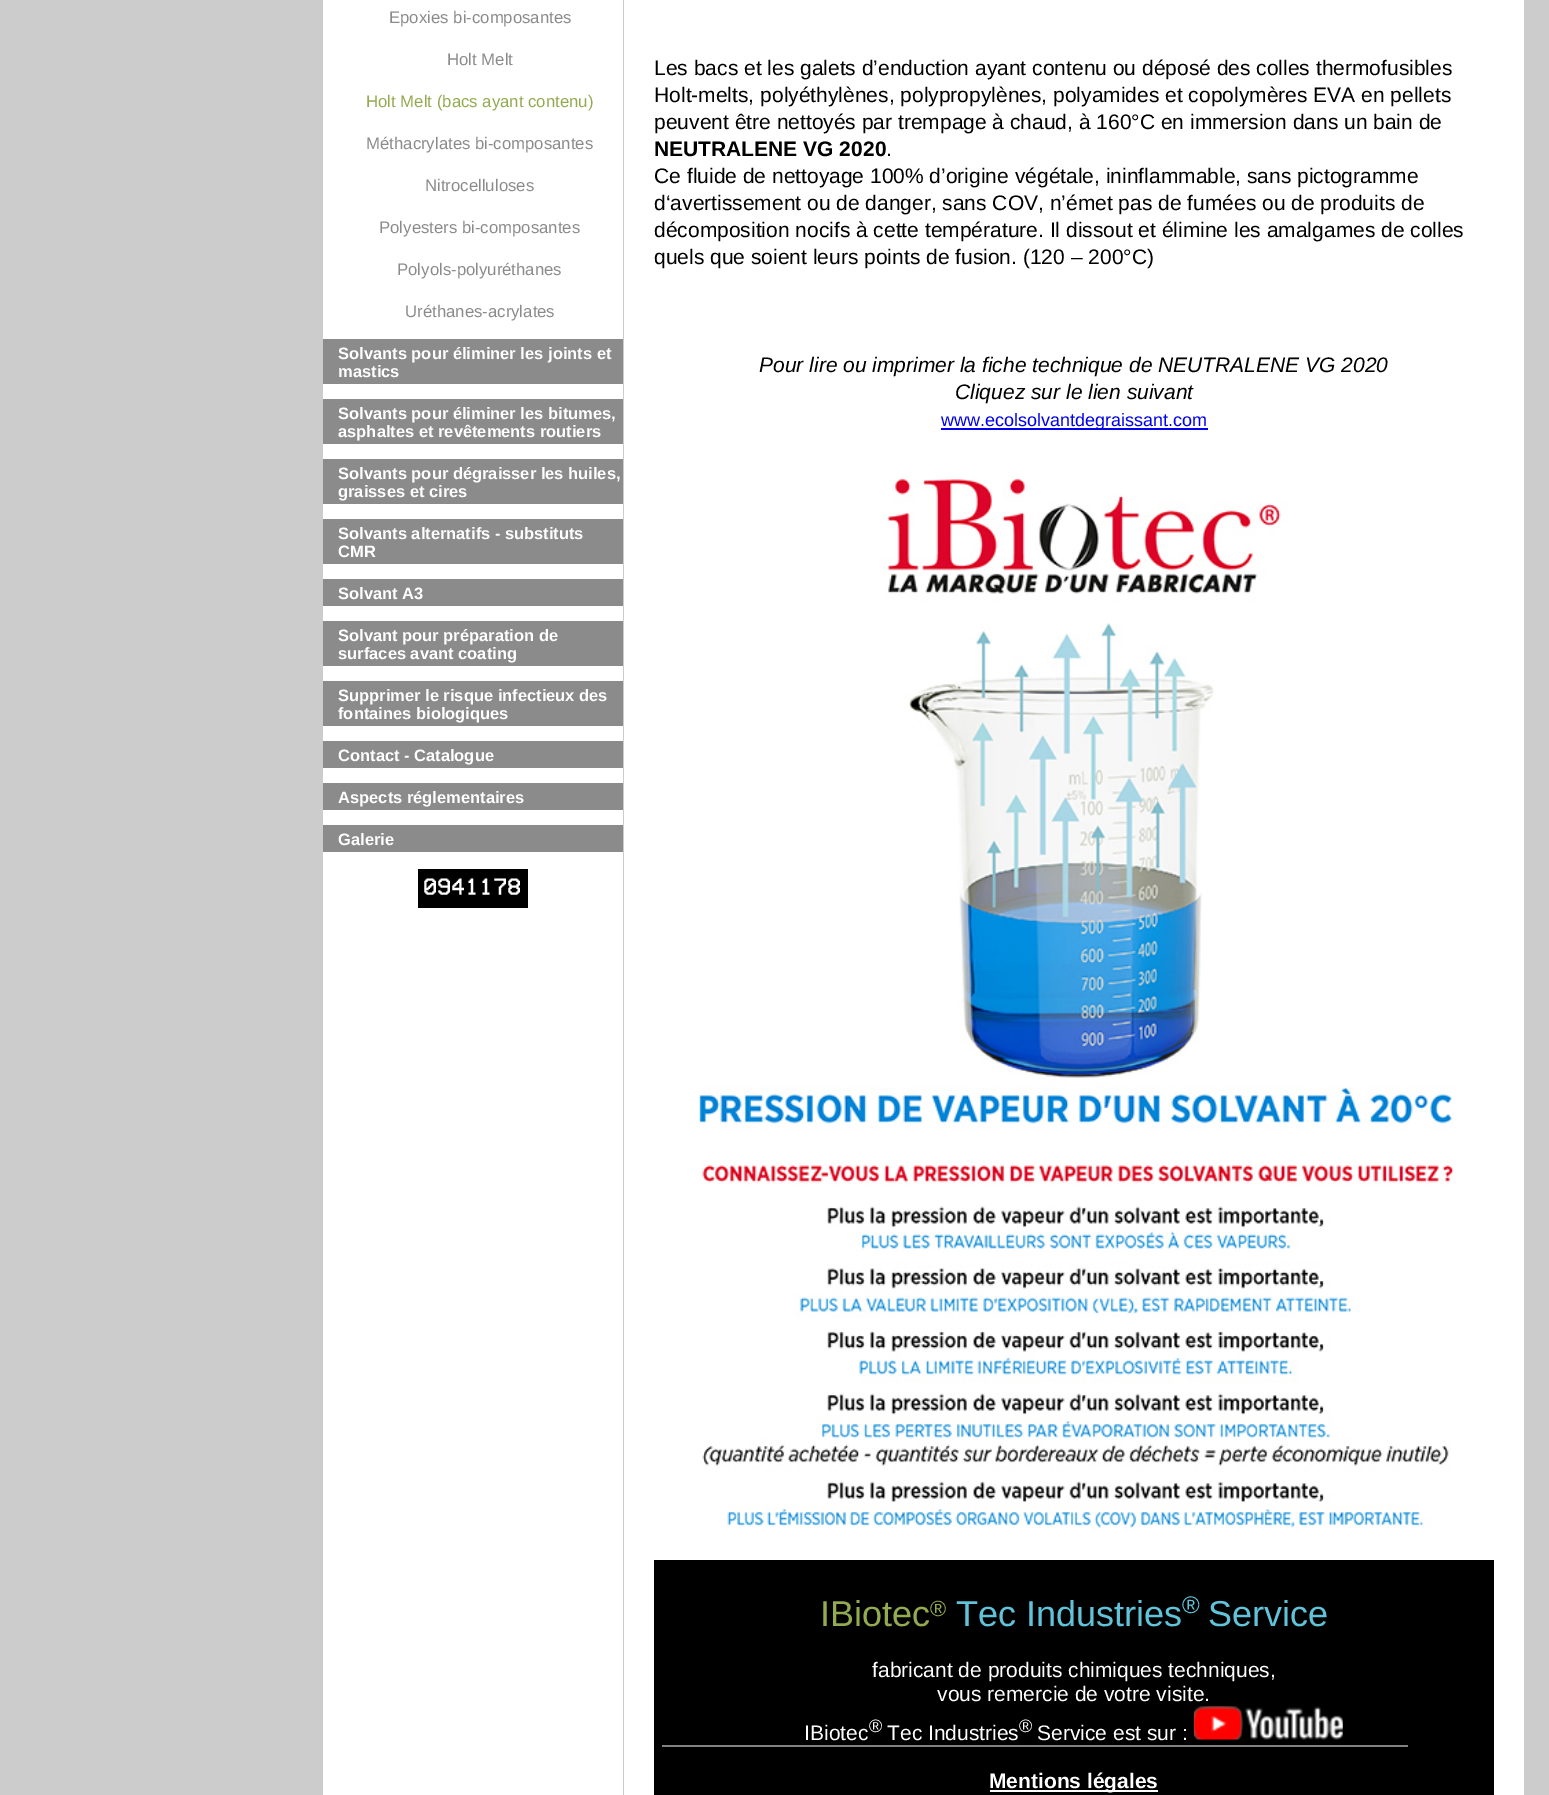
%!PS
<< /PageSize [1549 1795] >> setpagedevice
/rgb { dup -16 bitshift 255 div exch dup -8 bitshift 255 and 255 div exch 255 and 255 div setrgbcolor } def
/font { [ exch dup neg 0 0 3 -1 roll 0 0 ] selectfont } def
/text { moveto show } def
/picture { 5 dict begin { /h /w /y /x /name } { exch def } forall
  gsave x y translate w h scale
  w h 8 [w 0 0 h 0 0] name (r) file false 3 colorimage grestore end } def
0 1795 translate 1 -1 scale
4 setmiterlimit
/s1 { /LiberationSans-Regular 16.75 font 16#8B8B8B rgb } def
/s2 { /LiberationSans-Regular 16.75 font 16#93AA50 rgb } def
/s3 { /LiberationSans-Bold 16.5 font 16#FFFFFF rgb } def
/s4 { /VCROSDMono-Regular 24 font 16#FFFFFF rgb } def
/s5 { /LiberationSans-Regular 21 font 16#000000 rgb } def
/s6 { /LiberationSans-Bold 21 font 16#000000 rgb } def
/s7 { /LiberationSans-Italic 21 font 16#000000 rgb } def
/s8 { /LiberationSans-Regular 18 font 16#0000EE rgb } def
/s9 { /LiberationSans-Regular 36 font 16#93AA50 rgb } def
/s10 { /LiberationSans-Regular 22 font 16#93AA50 rgb } def
/s11 { /LiberationSans-Regular 36 font 16#61C3D9 rgb } def
/s12 { /LiberationSans-Regular 24 font 16#61C3D9 rgb } def
/s13 { /LiberationSans-Regular 21 font 16#FFFFFF rgb } def
/s14 { /LiberationSans-Regular 18 font 16#FFFFFF rgb } def
/s15 { /LiberationSans-Bold 21 font 16#FFFFFF rgb } def
16#CCCCCC rgb
0 0 1549 1795 rectfill
16#FFFFFF rgb
323 0 300 1795 rectfill
s1
(Epoxies bi-composantes) 389 23 text
(Holt Melt) 447 65 text
s2
(Holt Melt \(bacs ayant contenu\)) 366 107 text
s1
(Méthacrylates bi-composantes) 366 149 text
(Nitrocelluloses) 425 191 text
(Polyesters bi-composantes) 379 233 text
(Polyols-polyuréthanes) 397 275 text
(Uréthanes-acrylates) 405 317 text
323 339 300 45 rectfill
s3
(Solvants pour éliminer les joints et) 338 359 text
(mastics) 338 377 text
16#8B8B8B rgb
323 399 300 45 rectfill
s3
(Solvants pour éliminer les bitumes,) 338 419 text
(asphaltes et revêtements routiers) 338 437 text
16#8B8B8B rgb
323 459 300 45 rectfill
s3
(Solvants pour dégraisser les huiles,) 338 479 text
(graisses et cires) 338 497 text
16#8B8B8B rgb
323 519 300 45 rectfill
s3
(Solvants alternatifs - substituts) 338 539 text
(CMR) 338 557 text
16#8B8B8B rgb
323 579 300 27 rectfill
s3
(Solvant A3) 338 599 text
16#8B8B8B rgb
323 621 300 45 rectfill
s3
(Solvant pour préparation de) 338 641 text
(surfaces avant coating) 338 659 text
16#8B8B8B rgb
323 681 300 45 rectfill
s3
(Supprimer le risque infectieux des) 338 701 text
(fontaines biologiques) 338 719 text
16#8B8B8B rgb
323 741 300 27 rectfill
s3
(Contact - Catalogue) 338 761 text
16#8B8B8B rgb
323 783 300 27 rectfill
s3
(Aspects réglementaires) 338 803 text
16#8B8B8B rgb
323 825 300 27 rectfill
s3
(Galerie) 338 845 text
16#000000 rgb
418 869 110 39 rectfill
s4
(0941178) 423 896 text
624 0 900 1795 rectfill
s5
(Les bacs et les galets d’enduction ayant contenu ou déposé des colles thermofusibles) 654 75 text
(Holt-melts, polyéthylènes, polypropylènes, polyamides et copolymères EVA en pellets) 654 102 text
(peuvent être nettoyés par trempage à chaud, à 160°C en immersion dans un bain de) 654 129 text
s6
(NEUTRALENE VG 2020) 654 156 text
s5
(.) 886 156 text
(Ce fluide de nettoyage 100% d’origine végétale, ininflammable, sans pictogramme) 654 183 text
(d‘avertissement ou de danger, sans COV, n’émet pas de fumées ou de produits de) 654 210 text
(décomposition nocifs à cette température. Il dissout et élimine les amalgames de colles) 654 237 text
(quels que soient leurs points de fusion. \(120 – 200°C\)) 654 264 text
s7
(Pour lire ou imprimer la fiche technique de NEUTRALENE VG 2020) 759 372 text
(Cliquez sur le lien suivant) 955 399 text
16#0000EE rgb
941 428 267 2 rectfill
s8
(www.ecolsolvantdegraissant.com) 941 426 text
(pic1.raw) 699 478 755 1055 picture
16#000000 rgb
654 1560 840 235 rectfill
s9
(IBiotec) 820 1626 text
s10
(®) 930 1616 text
s11
(Tec Industries) 956 1626 text
s12
(®) 1182 1613 text
s11
(Service) 1208 1626 text
s13
(fabricant de produits chimiques techniques,) 872 1677 text
(vous remercie de votre visite.) 937 1701 text
(IBiotec) 804 1740 text
s14
(®) 869 1732 text
s13
(Tec Industries) 887 1740 text
s14
(®) 1019 1732 text
s13
(Service est sur :) 1037 1740 text
(pic2.raw) 1194 1706 149 34 picture
16#808080 rgb
662 1745 746 2 rectfill
16#FFFFFF rgb
990 1790 168 2 rectfill
s15
(Mentions légales) 989 1788 text
showpage
